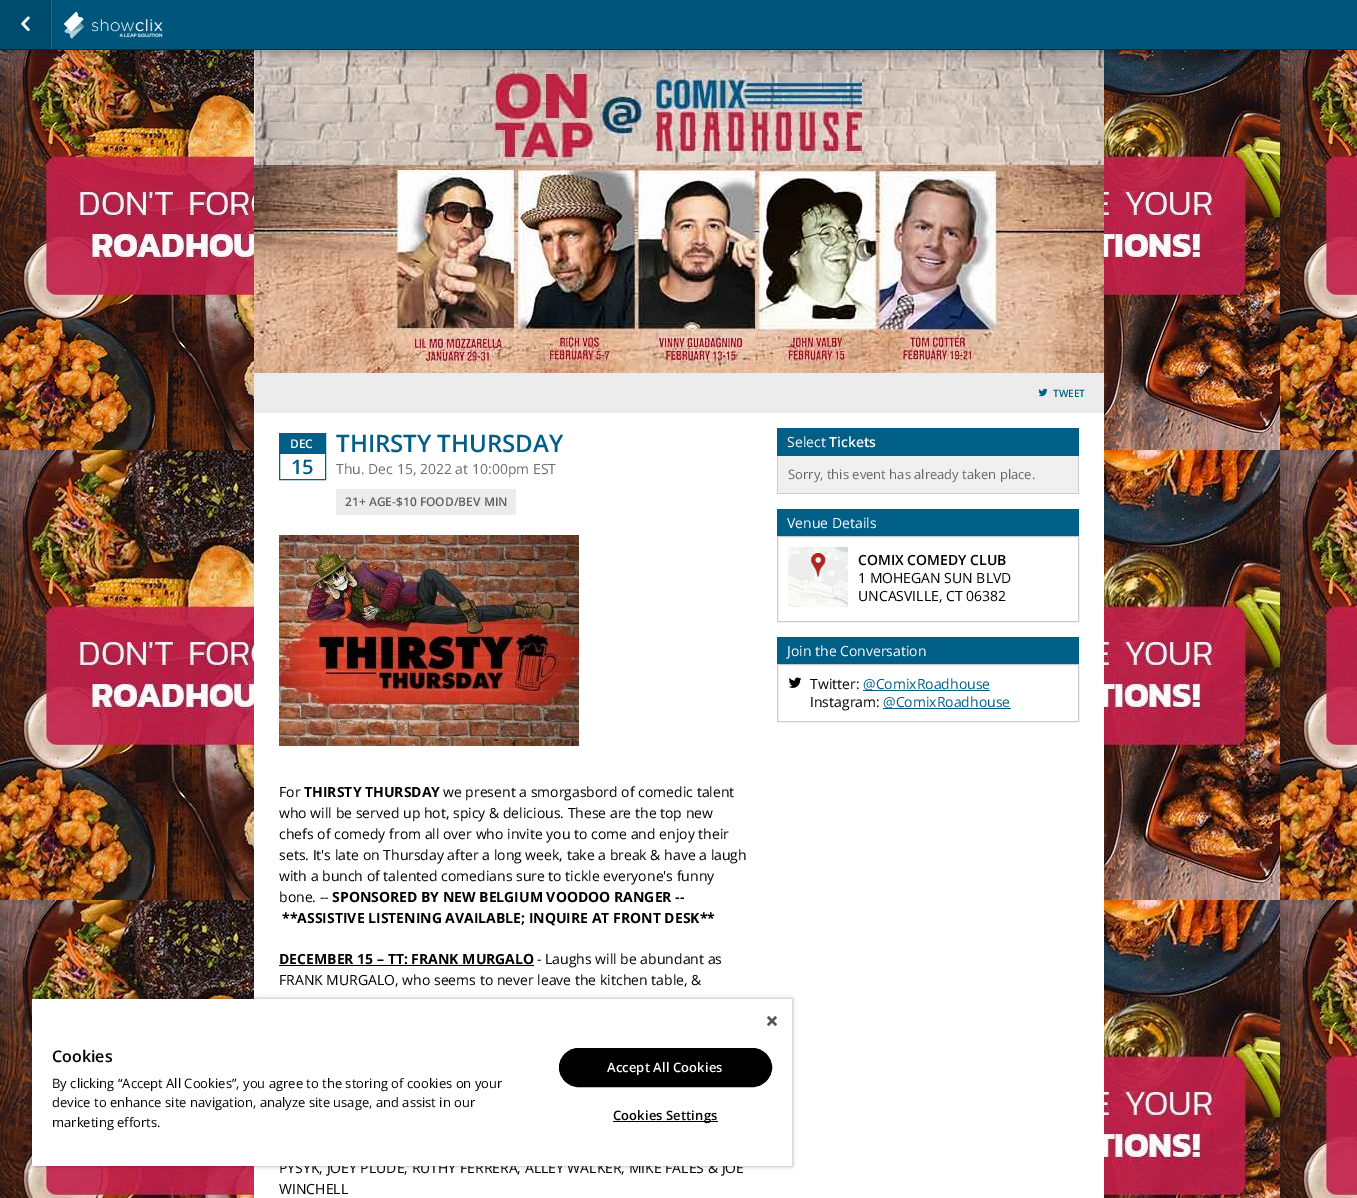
%!PS
<< /PageSize [1357 1198] /PageUsesTransparency true >> setpagedevice
/rgb { dup -16 bitshift 255 div exch dup -8 bitshift 255 and 255 div exch 255 and 255 div setrgbcolor } def
/font { [ exch dup neg 0 0 3 -1 roll 0 0 ] selectfont } def
/text { moveto show } def
/alpha { dup .setfillconstantalpha .setstrokeconstantalpha } def
/roundrect { 5 dict begin { /r /h /w /y /x } { exch def } forall
  x r add y moveto x w add y 2 copy h add r arct x w add y h add x 1 index r arct
  x y h add x y r arct x y 2 copy exch w add exch r arct closepath end } def
/shadow { 12 dict begin { /a /b /q /h /w /y /x } { exch def } forall gsave /was 0 def
  9 -2 -9 { dup b mul 4 div /e exch def 1 sub .425 mul 2.718 exch exp 1 add a .99 .min exch div /now exch def
    1 1 now sub 1 was sub div sub alpha /was now def
    w h .min e 2 mul add 0 gt { x e sub y e sub w e 2 mul add h e 2 mul add
      q e add b .6 mul add w h .min 2 div e add .min 0 .max roundrect fill } if } for grestore end } def
/picture { 5 dict begin { /h /w /y /x /name } { exch def } forall
  gsave x y translate w h scale
  w h 8 [w 0 0 h 0 0] name (r) file false 3 colorimage grestore end } def
0 .pushpdf14devicefilter
0 1198 translate 1 -1 scale
4 setmiterlimit
/s1 { /OpenSans-SemiBold 10 font 16#005F86 rgb } def
/s2 { /OpenSans-SemiBold 12 font 16#FFFFFF rgb } def
/s3 { /OpenSans-SemiBold 20 font 16#005F86 rgb } def
/s4 { /OpenSans-SemiBold 24 font 16#005F86 rgb } def
/s5 { /OpenSans-Regular 14 font 16#6D6D6D rgb } def
/s6 { /OpenSans-SemiBold 12 font 16#5E5E5E rgb } def
/s7 { /OpenSans-Regular 14 font 16#000000 rgb } def
/s8 { /OpenSans-Bold 14 font 16#000000 rgb } def
/s9 { /OpenSans-Regular 14 font 16#FFFFFF rgb } def
/s10 { /OpenSans-SemiBold 14 font 16#FFFFFF rgb } def
/s11 { /OpenSans-Regular 13 font 16#666666 rgb } def
/s12 { /OpenSans-SemiBold 14 font 16#000000 rgb } def
/s13 { /OpenSans-Regular 14 font 16#005F86 rgb } def
/s14 { /OpenSans-SemiBold 16 font 16#000000 rgb } def
/s15 { /OpenSans-Regular 13 font 16#000000 rgb } def
16#FFFFFF rgb
0 0 1357 1198 rectfill
(pic1.raw) 0 50 1357 1148 picture
(pic4.raw) 254 50 850 323 picture
16#000000 rgb
0 1 1357 50 0 7.5 0.4 shadow
16#00557C rgb
0 0 1357 49 rectfill
16#002D54 rgb
0 49 1357 1 rectfill
0.1 alpha
16#FFFFFF rgb
51 0 1 50 rectfill
16#000000 rgb
0 0 51 50 rectfill
50 0 1 50 rectfill
1 alpha
(pic2.raw) 21 16 9 15 picture
(pic3.raw) 63 11 100 28 picture
16#FFFFFF rgb
254 413 850 785 rectfill
16#ECECEC rgb
254 373 850 40 rectfill
(pic5.raw) 1038 388 10 9 picture
s1
(TWEET) 1053 397 text
279.5 433.5 46 46 rectstroke
280 434 45 20 rectfill
s2
(DEC) 290 448 text
s3
(15) 291 474 text
s4
(THIRSTY THURSDAY) 336 452 text
s5
(Thu. Dec 15, 2022 at 10:00pm EST) 336 474 text
16#ECECEC rgb
336 489 180 26 rectfill
s6
(21+ AGE-$10 FOOD/BEV MIN) 345 506 text
(pic6.raw) 279 535 300 211 picture
s7
(For) 279 797 text
s8
(THIRSTY THURSDAY) 304 797 text
s7
(we present a smorgasbord of comedic talent) 443 797 text
(who will be served up hot, spicy & delicious. These are the top new) 279 818 text
(chefs of comedy from all over who invite you to come and enjoy their) 279 839 text
(sets. It's late on Thursday after a long week, take a break & have a laugh) 279 860 text
(with a bunch of talented comedians sure to tickle everyone's funny) 279 881 text
(bone. --) 279 902 text
s8
(SPONSORED BY NEW BELGIUM VOODOO RANGER --) 332 902 text
(**ASSISTIVE LISTENING AVAILABLE; INQUIRE AT FRONT DESK**) 282 923 text
(DECEMBER 15 – TT: FRANK MURGALO) 279 964 text
279 965 255 1 rectfill
s7
(- Laughs will be abundant as) 537 964 text
(FRANK MURGALO, who seems to never leave the kitchen table, &) 279 985 text
(PYSYK, JOEY PLUDE, RUTHY FERRERA, ALLEY WALKER, MIKE FALES & JOE) 279 1173 text
(WINCHELL) 279 1194 text
16#005F86 rgb
777 428 302 28 rectfill
s9
(Select) 787 447 text
s10
(Tickets) 829 447 text
16#F0F0F0 rgb
778 456 300 37 rectfill
16#CCCCCC rgb
1078 456 1 38 rectfill
777 493 302 1 rectfill
777 456 1 38 rectfill
s11
(Sorry, this event has already taken place.) 788 479 text
16#005F86 rgb
777 509 302 27 rectfill
s9
(Venue Details) 787 528 text
16#CCCCCC rgb
777.5 536.5 301 85 rectstroke
(pic7.raw) 788 547 60 60 picture
s12
(COMIX COMEDY CLUB) 858 565 text
s7
(1 MOHEGAN SUN BLVD) 858 583 text
(UNCASVILLE, CT 06382) 858 601 text
16#005F86 rgb
777 637 302 27 rectfill
s9
(Join the Conversation) 787 656 text
16#CCCCCC rgb
777.5 664.5 301 57 rectstroke
(pic8.raw) 788 677 14 11 picture
s7
(Twitter:) 810 689 text
16#005F86 rgb
863 690 127 1 rectfill
(@ComixRoadhouse) 863 689 text
s7
(Instagram:) 810 707 text
16#005F86 rgb
883 708 128 1 rectfill
(@ComixRoadhouse) 883 707 text
16#000000 rgb
32 999 760 167 0 2 0.35 shadow
16#FFFFFF rgb
32 999 760 167 rectfill
(pic9.raw) 767 1016 10 10 picture
s14
(Cookies) 52 1062 text
s15
(By clicking “Accept All Cookies”, you agree to the storing of cookies on your) 52 1088 text
(device to enhance site navigation, analyze site usage, and assist in our) 52 1107 text
(marketing efforts.) 52 1127 text
559.5 1048.5 212 38 19 roundrect gsave fill grestore
stroke
/OpenSans-SemiBold 13 font
16#FFFFFF rgb
607 1072 moveto 0.1 0 (Accept All Cookies) ashow
16#000000 rgb
613 1121 105 1 rectfill
613 1120 moveto 0.1 0 (Cookies Settings) ashow
.poppdf14devicefilter showpage
